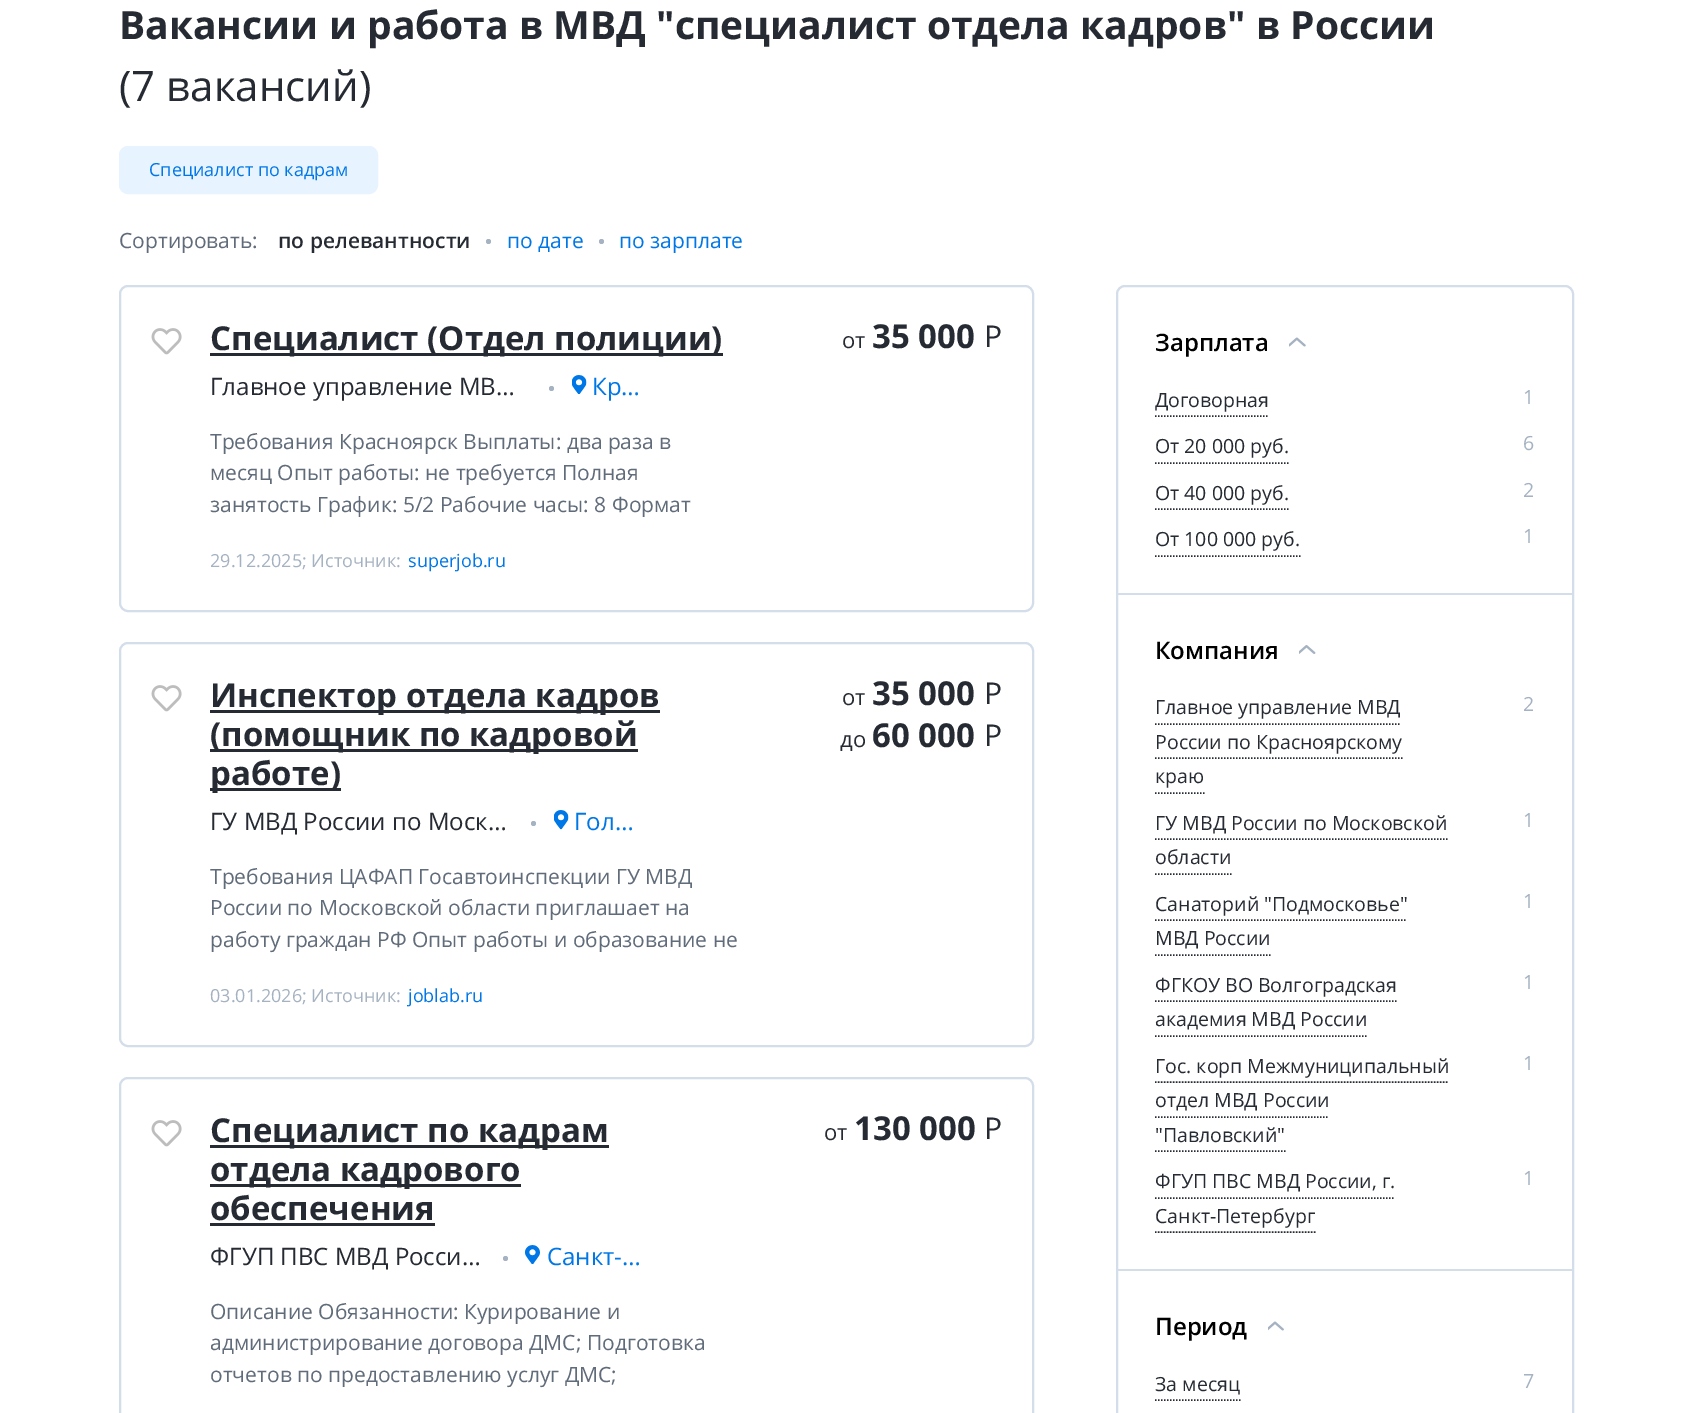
%!PS
<< /PageSize [1691 1413] >> setpagedevice
/rgb { dup -16 bitshift 255 div exch dup -8 bitshift 255 and 255 div exch 255 and 255 div setrgbcolor } def
/font { [ exch dup neg 0 0 3 -1 roll 0 0 ] selectfont } def
/text { moveto show } def
/circle { newpath 0 360 arc closepath } def
/roundrect { 5 dict begin { /r /h /w /y /x } { exch def } forall
  x r add y moveto x w add y 2 copy h add r arct x w add y h add x 1 index r arct
  x y h add x y r arct x y 2 copy exch w add exch r arct closepath end } def
/picture { 5 dict begin { /h /w /y /x /name } { exch def } forall
  gsave x y translate w h scale
  w h 8 [w 0 0 h 0 0] name (r) file false 3 colorimage grestore end } def
0 1413 translate 1 -1 scale
4 setmiterlimit
/s1 { /OpenSans-Bold 39 font 16#262B33 rgb } def
/s2 { /OpenSans-Regular 42 font 16#262B33 rgb } def
/s3 { /OpenSans-Regular 18 font 16#0077E6 rgb } def
/s4 { /OpenSans-Regular 21 font 16#616C7A rgb } def
/s5 { /OpenSans-SemiBold 21 font 16#262B33 rgb } def
/s6 { /OpenSans-Regular 21 font 16#0077E6 rgb } def
/s7 { /OpenSans-Bold 33 font 16#262B33 rgb } def
/s8 { /OpenSans-Regular 24 font 16#262B33 rgb } def
/s9 { /OpenSans-Regular 24 font 16#0077E6 rgb } def
/s10 { /OpenSans-Regular 18 font 16#A5B2C1 rgb } def
/s11 { /OpenSans-Regular 22 font 16#262B33 rgb } def
/s12 { /OpenSans-Regular 30 font 16#262B33 rgb } def
/s13 { /OpenSans-SemiBold 24 font 16#000000 rgb } def
/s14 { /OpenSans-Regular 19.5 font 16#262B33 rgb } def
/s15 { /OpenSans-Regular 19.5 font 16#A5B2C1 rgb } def
16#FFFFFF rgb
0 0 1691 1413 rectfill
s1
(Вакансии и работа в МВД "специалист отдела кадров" в России) 119 39 text
s2
(\(7 вакансий\)) 119 101 text
16#E7F3FF rgb
120 147 257 46 8 roundrect gsave fill grestore
2 setlinewidth
stroke
s3
(Специалист по кадрам) 149 176 text
s4
(Сортировать:) 119 248 text
s5
(по релевантности) 278 248 text
16#A5B2C1 rgb
488.5 241.5 2.5 circle fill
s6
(по дате) 507 248 text
16#A5B2C1 rgb
601.5 241.5 2.5 circle fill
s6
(по зарплате) 619 248 text
16#D3DEEA rgb
120 286 913 325 8 roundrect stroke
(pic1.raw) 151 328 31 27 picture
16#262B33 rgb
210 353 513 3 rectfill
s7
(Специалист \(Отдел полиции\)) 210 350 text
s8
(Главное управление МВ…) 210 395 text
16#A5B2C1 rgb
551.5 388.5 2.5 circle fill
(pic2.raw) 572 375 15 19 picture
s9
(Кр…) 592 395 text
s4
(Требования Красноярск Выплаты: два раза в) 210 449 text
(месяц Опыт работы: не требуется Полная) 210 480 text
(занятость График: 5/2 Рабочие часы: 8 Формат) 210 512 text
s10
(29.12.2025; Источник:) 210 567 text
s3
(superjob.ru) 408 567 text
s11
(от) 842 348 text
s7
(35 000) 872 348 text
s12
(Р) 984 347 text
16#D3DEEA rgb
120 643 913 403 8 roundrect stroke
(pic1.raw) 151 685 31 27 picture
16#262B33 rgb
210 710 450 3 rectfill
s7
(Инспектор отдела кадров) 210 707 text
210 749 428 3 rectfill
(\(помощник по кадровой) 210 746 text
210 788 131 3 rectfill
(работе\)) 210 785 text
s8
(ГУ МВД России по Моск…) 210 830 text
16#A5B2C1 rgb
533.5 823.5 2.5 circle fill
(pic3.raw) 554 810 15 20 picture
s9
(Гол…) 574 830 text
s4
(Требования ЦАФАП Госавтоинспекции ГУ МВД) 210 884 text
(России по Московской области приглашает на) 210 915 text
(работу граждан РФ Опыт работы и образование не) 210 947 text
s10
(03.01.2026; Источник:) 210 1002 text
s3
(joblab.ru) 408 1002 text
s11
(от) 842 705 text
s7
(35 000) 872 705 text
s12
(Р) 984 704 text
s11
(до) 840 747 text
s7
(60 000) 872 747 text
s12
(Р) 984 746 text
16#D3DEEA rgb
120 1078 913 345 8 roundrect stroke
(pic1.raw) 151 1120 31 27 picture
16#262B33 rgb
210 1145 399 3 rectfill
s7
(Специалист по кадрам) 210 1142 text
210 1184 311 3 rectfill
(отдела кадрового) 210 1181 text
(обеспечения) 210 1220 text
210 1223 225 3 rectfill
s8
(ФГУП ПВС МВД Росси…) 210 1265 text
16#A5B2C1 rgb
505.5 1258.5 2.5 circle fill
(pic4.raw) 525 1245 15 19 picture
s9
(Санкт-…) 547 1265 text
s4
(Описание Обязанности: Курирование и) 210 1319 text
(администрирование договора ДМС; Подготовка) 210 1350 text
(отчетов по предоставлению услуг ДМС;) 210 1382 text
s11
(от) 824 1140 text
s7
(130 000) 854 1140 text
s12
(Р) 984 1139 text
16#D3DEEA rgb
1117 286 456 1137 8 roundrect stroke
1118 593 454 2 rectfill
s13
(Зарплата) 1155 351 text
(pic5.raw) 1289 337 17 10 picture
s14
(Договорная) 1155 407 text
1.5 setlinewidth
[1.5 1.5] 0 setdash
1155 416 moveto 1269 416 lineto stroke
s15
(1) 1523 404 text
s14
(От 20 000 руб.) 1155 453 text
1155 463 moveto 1288.5 463 lineto stroke
s15
(6) 1523 450 text
s14
(От 40 000 руб.) 1155 500 text
1155 509 moveto 1288.5 509 lineto stroke
s15
(2) 1523 497 text
s14
(От 100 000 руб.) 1155 546 text
1155 556 moveto 1300.5 556 lineto stroke
s15
(1) 1523 543 text
16#D3DEEA rgb
1118 1269 454 2 rectfill
s13
(Компания) 1155 659 text
(pic6.raw) 1299 645 17 9 picture
s14
(Главное управление МВД) 1155 714 text
1155 724 moveto 1401 724 lineto stroke
s15
(2) 1523 711 text
s14
(России по Красноярскому) 1155 749 text
1155 758 moveto 1402.5 758 lineto stroke
(краю) 1155 783 text
1155 793 moveto 1204.5 793 lineto stroke
(ГУ МВД России по Московской) 1155 830 text
1155 839 moveto 1447.5 839 lineto stroke
s15
(1) 1523 827 text
s14
(области) 1155 864 text
1155 874 moveto 1231.5 874 lineto stroke
(Санаторий "Подмосковье") 1155 911 text
1155 920 moveto 1407 920 lineto stroke
s15
(1) 1523 908 text
s14
(МВД России) 1155 945 text
1155 955 moveto 1270.5 955 lineto stroke
(ФГКОУ ВО Волгоградская) 1155 992 text
1155 1001 moveto 1396.5 1001 lineto stroke
s15
(1) 1523 989 text
s14
(академия МВД России) 1155 1026 text
1155 1036 moveto 1366.5 1036 lineto stroke
(Гос. корп Межмуниципальный) 1155 1073 text
1155 1082 moveto 1449 1082 lineto stroke
s15
(1) 1523 1070 text
s14
(отдел МВД России) 1155 1107 text
1155 1117 moveto 1329 1117 lineto stroke
("Павловский") 1155 1142 text
1155 1151 moveto 1285.5 1151 lineto stroke
(ФГУП ПВС МВД России, г.) 1155 1188 text
1155 1198 moveto 1395 1198 lineto stroke
s15
(1) 1523 1185 text
s14
(Санкт-Петербург) 1155 1223 text
1155 1232 moveto 1315.5 1232 lineto stroke
s13
(Период) 1155 1335 text
(pic7.raw) 1268 1321 16 10 picture
s14
(За месяц) 1155 1391 text
1155 1400 moveto 1240.5 1400 lineto stroke
s15
(7) 1523 1388 text
showpage
